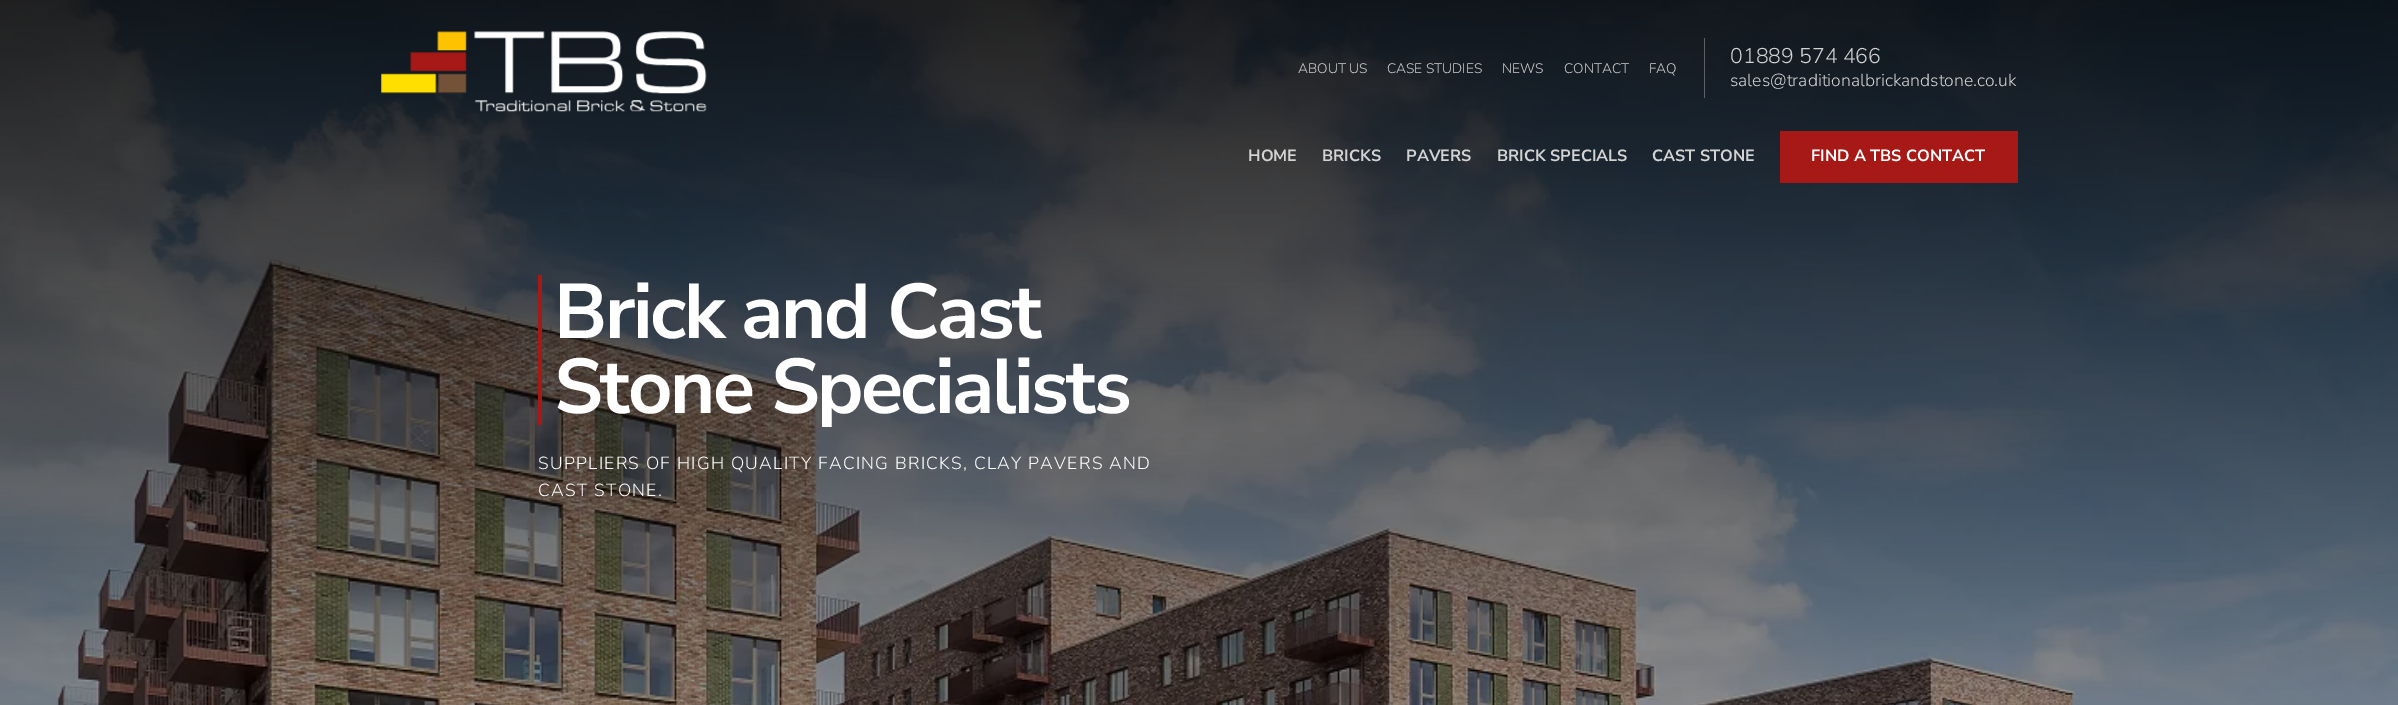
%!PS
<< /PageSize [2398 705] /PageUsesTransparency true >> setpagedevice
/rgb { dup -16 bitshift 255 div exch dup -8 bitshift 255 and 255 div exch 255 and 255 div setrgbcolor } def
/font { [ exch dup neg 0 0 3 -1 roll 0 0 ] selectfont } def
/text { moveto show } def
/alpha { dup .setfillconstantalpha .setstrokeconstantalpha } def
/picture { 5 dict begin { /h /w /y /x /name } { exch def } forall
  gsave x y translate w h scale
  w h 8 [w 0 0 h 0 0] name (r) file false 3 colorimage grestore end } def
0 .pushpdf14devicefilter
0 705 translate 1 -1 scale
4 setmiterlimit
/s1 { /NunitoSans-Light 13.75 font 16#D3D3D4 rgb } def
/s2 { /NunitoSans-Light 21.25 font 16#D3D3D4 rgb } def
/s3 { /NunitoSans-Light 17.5 font 16#D3D3D4 rgb } def
/s4 { /NunitoSans-Bold 16.25 font 16#D3D3D4 rgb } def
/s5 { /NunitoSans-Bold 16.25 font 16#FFFFFF rgb } def
16#FFFFFF rgb
0 0 2398 705 rectfill
(pic2.raw) 0 0 2398 705 picture
(pic1.raw) 381 31 326 81 picture
s1
(ABOUT US) 1298 73 text
(CASE STUDIES) 1387 73 text
(NEWS) 1502 73 text
(CONTACT) 1564 73 text
(FAQ) 1649 73 text
0.3 alpha
16#FFFFFF rgb
1704 38 1 60 rectfill
1 alpha
s2
(01889 574 466) 1730 63 text
s3
(sales@traditionalbrickandstone.co.uk) 1730 86 text
s4
(HOME) 1248 161 text
(BRICKS) 1322 161 text
(PAVERS) 1406 161 text
(BRICK SPECIALS) 1497 161 text
(CAST STONE) 1652 161 text
16#A71916 rgb
1780 131 238 52 rectfill
s5
(FIND A TBS CONTACT) 1811 161 text
16#A71916 rgb
538 275 4 150 rectfill
/NunitoSans-Bold 77.5 font
16#FFFFFF rgb
554 338 moveto -2.5 0 (Brick and Cast) ashow
554 413 moveto -2.5 0 (Stone Specialists) ashow
/NunitoSans-Light 17.5 font
538 469 moveto 1.25 0 (SUPPLIERS OF HIGH QUALITY FACING BRICKS, CLAY PAVERS AND) ashow
538 496 moveto 1.25 0 (CAST STONE.) ashow
.poppdf14devicefilter showpage
